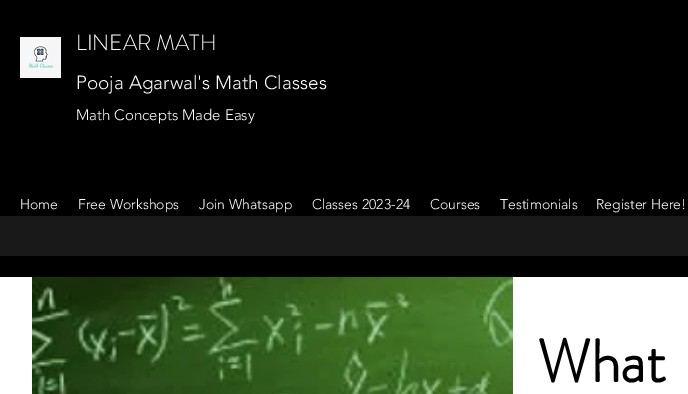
%!PS
<< /PageSize [688 394] >> setpagedevice
/rgb { dup -16 bitshift 255 div exch dup -8 bitshift 255 and 255 div exch 255 and 255 div setrgbcolor } def
/font { [ exch dup neg 0 0 3 -1 roll 0 0 ] selectfont } def
/text { moveto show } def
/picture { 5 dict begin { /h /w /y /x /name } { exch def } forall
  gsave x y translate w h scale
  w h 8 [w 0 0 h 0 0] name (r) file false 3 colorimage grestore end } def
0 394 translate 1 -1 scale
4 setmiterlimit
/s1 { /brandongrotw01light-Light 22 font 16#FFFFFF rgb } def
/s2 { /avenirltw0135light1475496-Light 19 font 16#FFFFFF rgb } def
/s3 { /avenirltw0135light1475496-Light 15 font 16#FFFFFF rgb } def
/s4 { /avenirltw0135light1475496-Light 14 font 16#FFFFFF rgb } def
/s5 { /brandongrotw01light-Bold 60 font 16#000000 rgb } def
16#FFFFFF rgb
0 0 688 394 rectfill
16#000000 rgb
0 0 688 277 rectfill
(pic1.raw) 20 37 41 41 picture
s1
(LINEAR MATH) 76 50 text
s2
(Pooja Agarwal's Math Classes) 76 89 text
s3
(Math Concepts Made Easy) 76 120 text
s4
(Home) 20 209 text
(Free Workshops) 78 209 text
(Join Whatsapp) 199 209 text
(Classes 2023-24) 312 209 text
(Courses) 430 209 text
(Testimonials) 500 209 text
(Register Here!) 596 209 text
16#191919 rgb
0 216 688 40 rectfill
(pic2.raw) 32 277 481 117 picture
s5
(What) 537 382 text
showpage
